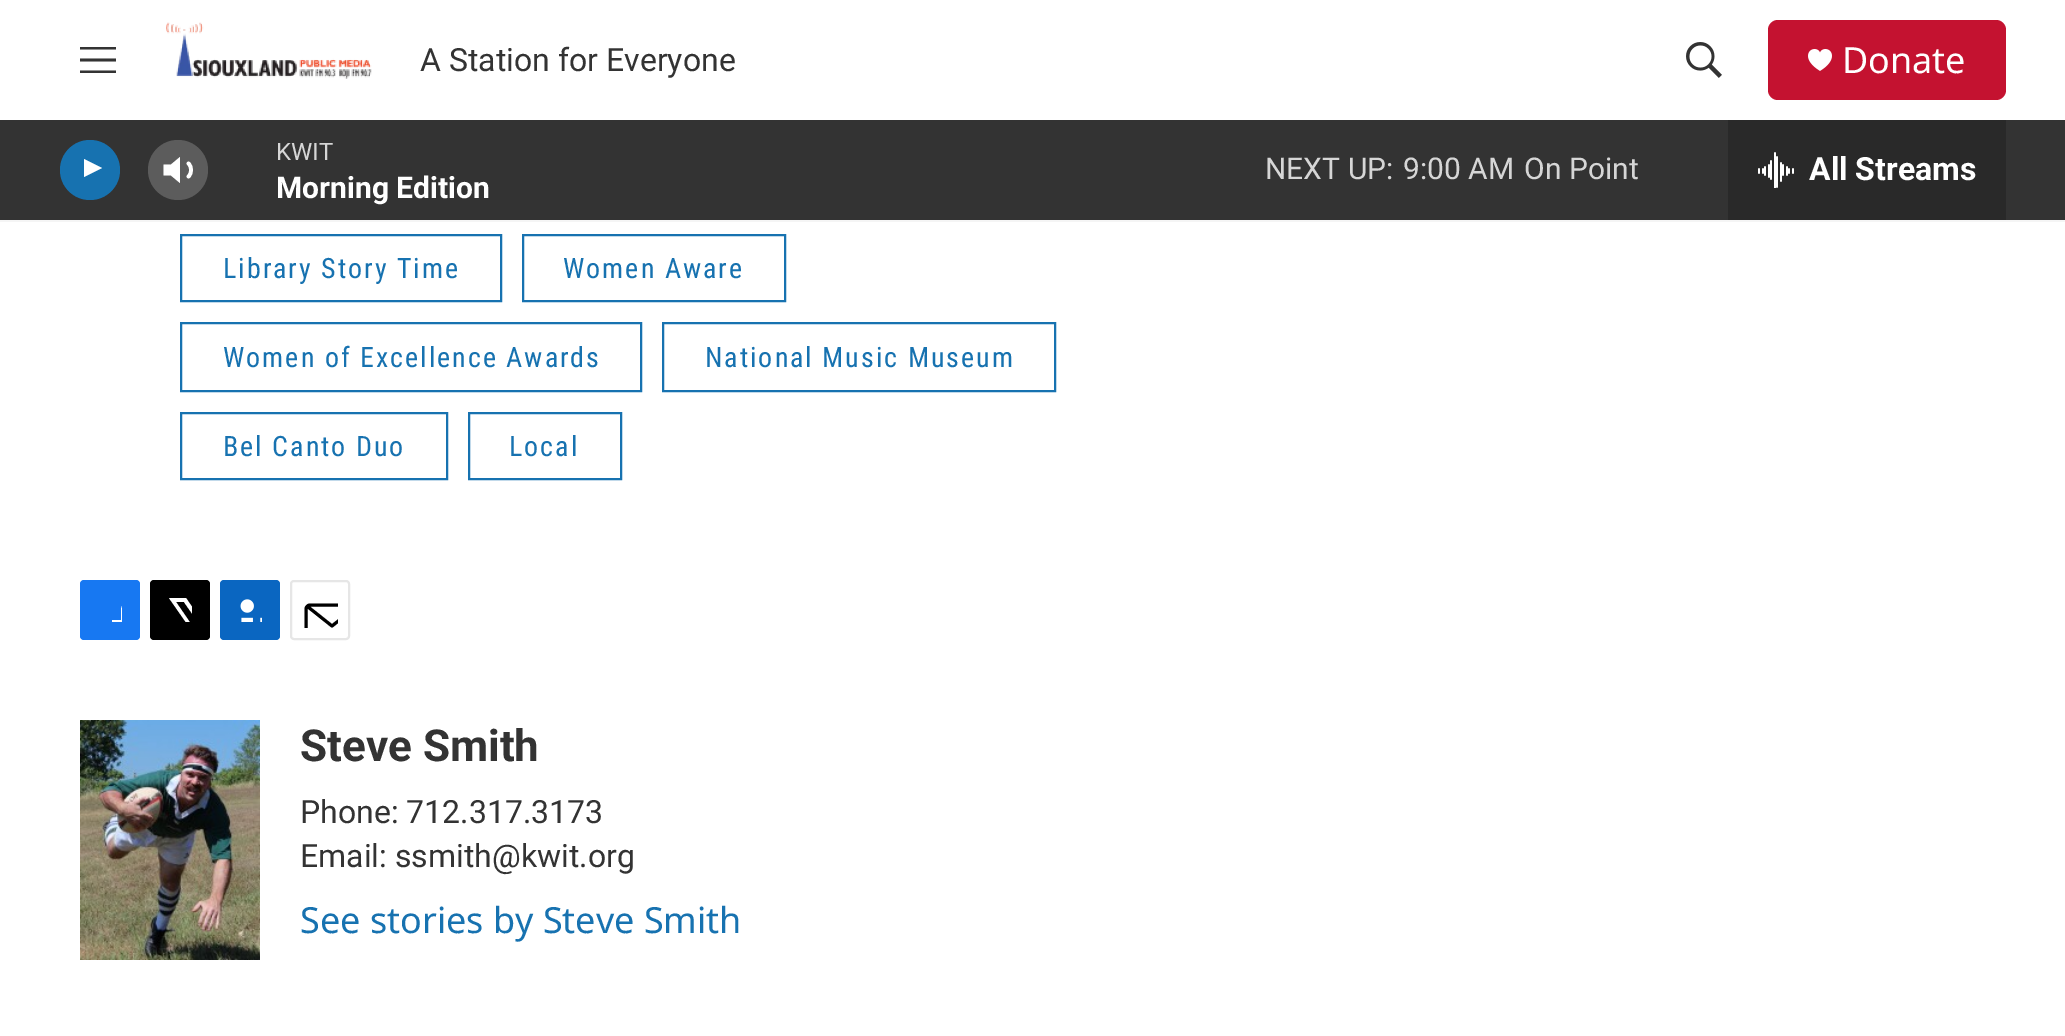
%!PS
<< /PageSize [2065 1036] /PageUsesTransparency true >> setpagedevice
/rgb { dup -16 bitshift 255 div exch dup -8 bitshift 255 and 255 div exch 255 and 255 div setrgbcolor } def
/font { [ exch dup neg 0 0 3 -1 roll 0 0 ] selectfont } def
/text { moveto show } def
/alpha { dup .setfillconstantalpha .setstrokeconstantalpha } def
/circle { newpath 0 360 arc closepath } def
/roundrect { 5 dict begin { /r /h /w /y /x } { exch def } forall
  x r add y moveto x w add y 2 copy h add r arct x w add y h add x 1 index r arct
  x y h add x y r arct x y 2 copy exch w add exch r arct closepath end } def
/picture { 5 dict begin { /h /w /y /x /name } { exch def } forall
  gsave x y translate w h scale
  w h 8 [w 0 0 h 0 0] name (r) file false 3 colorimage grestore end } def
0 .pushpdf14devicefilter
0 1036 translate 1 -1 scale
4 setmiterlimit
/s1 { /Roboto-Regular 32 font 16#333333 rgb } def
/s2 { /NotoSans-Regular 36 font 16#FFFFFF rgb } def
/s3 { /Roboto-Regular 24 font 16#D6D6D6 rgb } def
/s4 { /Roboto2-Bold 30 font 16#FFFFFF rgb } def
/s5 { /Roboto-Regular 30 font 16#D6D6D6 rgb } def
/s6 { /Roboto2-Bold 32 font 16#FFFFFF rgb } def
/s7 { /Roboto-Bold 44 font 16#333333 rgb } def
/s8 { /NotoSans-Regular 36 font 16#1772B0 rgb } def
16#FFFFFF rgb
0 0 2065 1036 rectfill
16#F5F5F5 rgb
0 220 2065 2 rectfill
16#333333 rgb
80 61.5 moveto 80 58.5 lineto 116 58.5 lineto 116 61.5 lineto closepath 80 49.5 moveto 80 47 lineto 116 47 lineto 116 49.5 lineto closepath 80 73 moveto 80 70.5 lineto 116 70.5 lineto 116 73 lineto closepath eofill
(pic1.raw) 166 22 206 57 picture
s1
(A Station for Everyone) 420 71 text
(pic2.raw) 1686 42 36 36 picture
16#C41230 rgb
1768 20 238 80 10 roundrect fill
(pic3.raw) 1808 49 24 22 picture
s2
(Donate) 1842 73 text
16#333333 rgb
0 120 2065 100 rectfill
16#1772B0 rgb
90 170 30 circle fill
gsave
84 156 23 30 rectclip
16#FFFFFF rgb
83 158.5 moveto 102 168 lineto 83 177.5 lineto closepath fill
grestore
16#FFFFFF rgb
180 157 moveto 171 164.5 lineto 163.5 164.5 lineto 163.5 175.5 lineto 171 175.5 lineto 180 183 lineto closepath fill
3.7 setlinewidth
1 setlinecap
1 setlinejoin
188.5 163.5 moveto 192 167 192 173 188.5 176.5 curveto stroke
0.2 alpha
178 170 30 circle fill
1 alpha
s3
(KWIT) 276 160 text
s4
(Morning Edition) 276 198 text
s5
(NEXT UP:) 1265 179 text
(9:00 AM) 1403 179 text
(On Point) 1524 179 text
16#292929 rgb
1728 120 278 100 rectfill
(pic4.raw) 1758 152 36 36 picture
s6
(All Streams) 1809 180 text
16#1772B0 rgb
2 setlinewidth
0 setlinecap
0 setlinejoin
181 235 320 66 rectstroke
/RobotoCondensed-Regular 28 font
223 278 moveto 2 0 (Library Story Time) ashow
523 235 262 66 rectstroke
563 278 moveto 2 0 (Women Aware) ashow
181 323 460 68 rectstroke
223 367 moveto 2 0 (Women of Excellence Awards) ashow
663 323 392 68 rectstroke
705 367 moveto 2 0 (National Music Museum) ashow
181 413 266 66 rectstroke
223 456 moveto 2 0 (Bel Canto Duo) ashow
469 413 152 66 rectstroke
509 456 moveto 2 0 (Local) ashow
16#1778F2 rgb
80 580 60 60 4 roundrect fill
gsave
98 598 24 24 rectclip
16#FFFFFF rgb
131 640 moveto 121 640 lineto 121 630 lineto 112 630 lineto 112 620 lineto 121 620 lineto 121 609 lineto 123 600 132 598 140 599 curveto 140 608 lineto 129 608 131 611 131 620 curveto 140 620 lineto 140 625 lineto 139 630 lineto 131 630 lineto closepath fill
grestore
16#000000 rgb
150 580 60 60 4 roundrect fill
gsave
168 598 24 24 rectclip
16#FFFFFF rgb
204 623 moveto 210 632 lineto 210 634 211 637 209 638 curveto 184 602 lineto 176 602 lineto 202 640 lineto 197 640 lineto 194 635 lineto 190 640 lineto 184 640 lineto 192 631 lineto 169 598 lineto 186 598 lineto 201 620 lineto 210 610 lineto 210 616 lineto closepath fill
grestore
16#0A66C1 rgb
220 580 60 60 4 roundrect fill
(pic5.raw) 240 599 22 23 picture
16#E6E6E6 rgb
291 581 58 58 3 roundrect stroke
gsave
302 592 36 36 rectclip
16#000000 rgb
3 setlinewidth
1 setlinecap
1 setlinejoin
358 636 moveto 358 638 356 639.5 354 639.5 curveto 310 639.5 lineto 308 639.5 306 638 306 636 curveto 306 609 lineto 306 607 308 605 310 605 curveto 354 605 lineto 356 605 358 607 358 609 curveto closepath 356.5 606.5 moveto 332 626 lineto 307.5 606.5 lineto stroke
grestore
(pic6.raw) 80 720 180 240 picture
s7
(Steve Smith) 300 761 text
s1
(Phone: 712.317.3173) 300 823 text
(Email: ssmith@kwit.org) 300 867 text
s8
(See stories by Steve Smith) 300 933 text
.poppdf14devicefilter showpage
